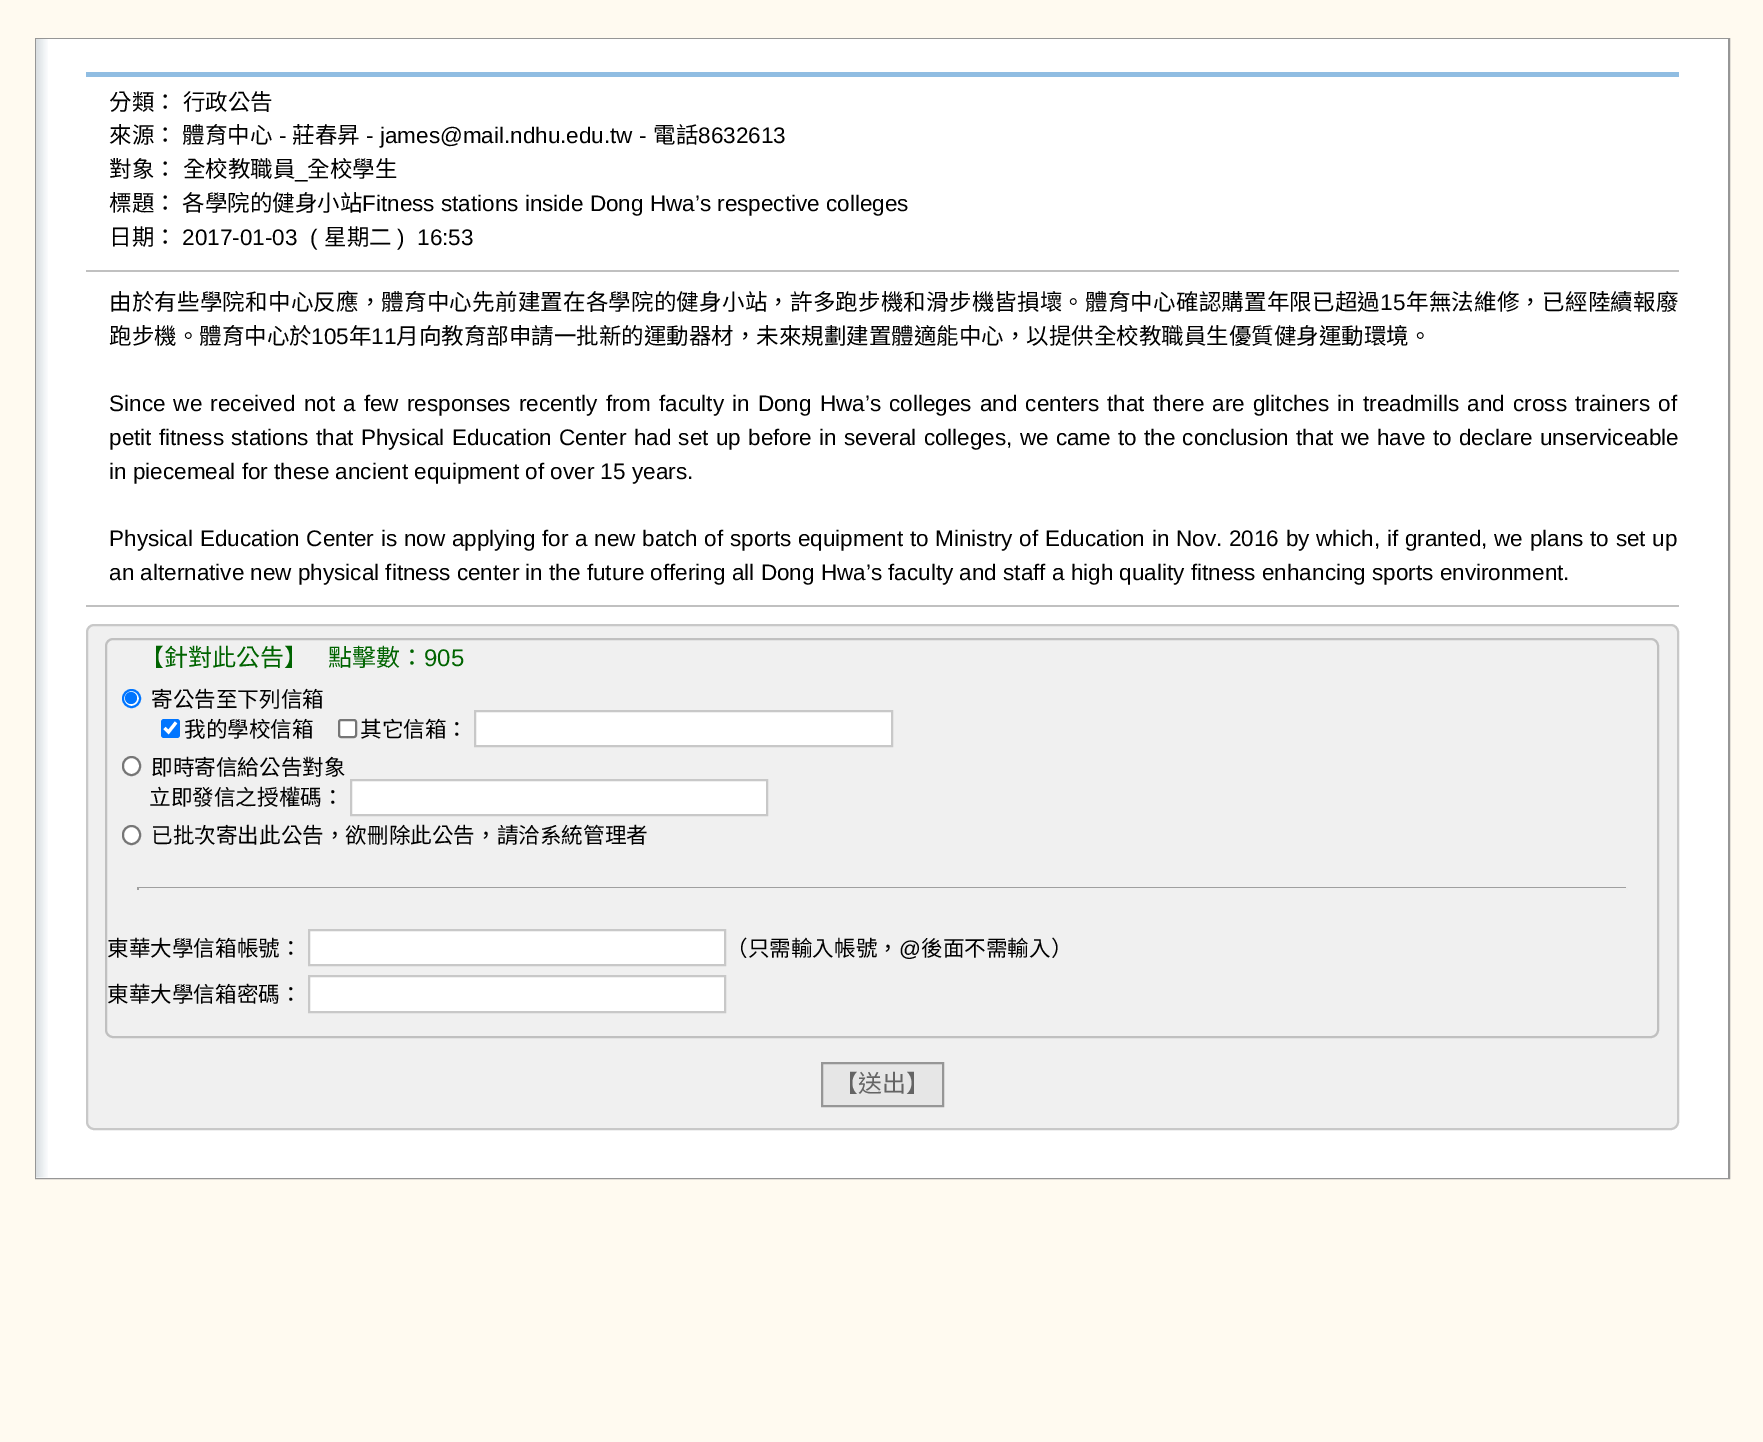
%!PS
<< /PageSize [1763 1442] >> setpagedevice
/rgb { dup -16 bitshift 255 div exch dup -8 bitshift 255 and 255 div exch 255 and 255 div setrgbcolor } def
/font { [ exch dup neg 0 0 3 -1 roll 0 0 ] selectfont } def
/text { moveto show } def
/circle { newpath 0 360 arc closepath } def
/roundrect { 5 dict begin { /r /h /w /y /x } { exch def } forall
  x r add y moveto x w add y 2 copy h add r arct x w add y h add x 1 index r arct
  x y h add x y r arct x y 2 copy exch w add exch r arct closepath end } def
/picture { 5 dict begin { /h /w /y /x /name } { exch def } forall
  gsave x y translate w h scale
  w h 8 [w 0 0 h 0 0] name (r) file false 3 colorimage grestore end } def
0 1442 translate 1 -1 scale
4 setmiterlimit
/s1 { /NotoSansCJKTC-Regular 22.5 font 16#000000 rgb } def
/s2 { /LiberationSans-Regular 22.5 font 16#000000 rgb } def
/s3 { /NotoSansCJKTC-Regular 24 font 16#006400 rgb } def
/s4 { /LiberationSans-Regular 24 font 16#006400 rgb } def
/s5 { /NotoSansCJKTC-Regular 21.6 font 16#000000 rgb } def
/s6 { /LiberationSans-Regular 21.6 font 16#000000 rgb } def
/s7 { /NotoSansCJKTC-Regular 24 font 16#646464 rgb } def
16#FFFAF0 rgb
0 0 1763 1442 rectfill
16#969696 rgb
2 setlinewidth
36 39 1693 1139 rectstroke
16#FFFFFF rgb
36 39 1692 1139 rectfill
(pic1.raw) 36 39 12 1139 picture
16#90BDE2 rgb
86 72 1593 5 rectfill
/NotoSansCJKTC-Regular 22.5 font
16#000000 rgb
109 110 moveto 1 0 32 (分類： 行政公告) widthshow
(來源：) 109 143 text
(體育中心) 182 143 text
s2
(-) 279 143 text
s1
(莊春昇) 292 143 text
s2
(- james@mail.ndhu.edu.tw -) 366 143 text
s1
(電話) 653 143 text
s2
(8632613) 698 143 text
/NotoSansCJKTC-Regular 22.5 font
109 177 moveto 1 0 32 (對象： 全校教職員) widthshow
(全校學生) 307 177 text
s2
(_) 295 177 text
s1
(標題：) 109 211 text
(各學院的健身小站) 182 211 text
s2
(Fitness stations inside Dong Hwa’s respective colleges) 362 211 text
s1
(日期：) 109 245 text
s2
(2017-01-03  \() 182 245 text
s1
(星期二) 324 245 text
s2
(\)  16:53) 397 245 text
16#C0C0C0 rgb
86 270 1593 2 rectfill
/NotoSansCJKTC-Regular 22.5 font
16#000000 rgb
109 310 moveto 0.2 0 (由於有些學院和中心反應，體育中心先前建置在各學院的健身小站，許多跑步機和滑步機皆損壞。體育中心確認購置年限已超過) ashow
/LiberationSans-Regular 22.5 font
1380 310 moveto 0.2 0 (15) ashow
/NotoSansCJKTC-Regular 22.5 font
1406 310 moveto 0.2 0 (年無法維修，已經陸續報廢) ashow
(跑步機。體育中心於) 109 344 text
s2
(105) 311 344 text
s1
(年) 349 344 text
s2
(11) 371 344 text
s1
(月向教育部申請一批新的運動器材，未來規劃建置體適能中心，以提供全校教職員生優質健身運動環境。) 396 344 text
/LiberationSans-Regular 22.5 font
109 411 moveto 1.9 0 32 (Since we received not a few responses recently from faculty in Dong Hwa’s colleges and centers that there are glitches in treadmills and cross trainers of) widthshow
109 445 moveto 1 0 32 (petit fitness stations that Physical Education Center had set up before in several colleges, we came to the conclusion that we have to declare unserviceable) widthshow
(in piecemeal for these ancient equipment of over 15 years.) 109 479 text
109 546 moveto 0.5 0 32 (Physical Education Center is now applying for a new batch of sports equipment to Ministry of Education in Nov. 2016 by which, if granted, we plans to set up) widthshow
(an alternative new physical fitness center in the future offering all Dong Hwa’s faculty and staff a high quality fitness enhancing sports environment.) 109 580 text
16#C0C0C0 rgb
86 605 1593 2 rectfill
16#F0F0F0 rgb
87 625 1591 504 7 roundrect gsave fill grestore
16#C8C8C8 rgb
stroke
16#C0C0C0 rgb
106 639 1552 398 7 roundrect stroke
s3
(【針對此公告】) 140 666 text
(點擊數：) 328 666 text
s4
(905) 424 666 text
16#FFFFFF rgb
131.5 698.5 8.5 circle gsave fill grestore
16#0075FF rgb
stroke
131 698 6 circle fill
s5
(寄公告至下列信箱) 151 707 text
16#0075FF rgb
161 719 19 19 3 roundrect fill
16#FFFFFF rgb
3.1 setlinewidth
164.5 728 moveto 168.5 732 lineto 176 722.5 lineto stroke
s5
(我的學校信箱) 184 737 text
16#FFFFFF rgb
339 720 17 17 2 roundrect gsave fill grestore
16#767676 rgb
2 setlinewidth
stroke
s5
(其它信箱：) 360 737 text
16#FFFFFF rgb
475 711 moveto 892 711 lineto 892 746 lineto 475 746 lineto closepath gsave fill grestore
16#C8C8C8 rgb
stroke
16#FFFFFF rgb
123 757 17 18 8.5 roundrect gsave fill grestore
16#767676 rgb
stroke
s5
(即時寄信給公告對象) 151 775 text
(立即發信之授權碼：) 149 805 text
16#FFFFFF rgb
351 780 moveto 767 780 lineto 767 815 lineto 351 815 lineto closepath gsave fill grestore
16#C8C8C8 rgb
stroke
16#FFFFFF rgb
123 826 17 18 8.5 roundrect gsave fill grestore
16#767676 rgb
stroke
s5
(已批次寄出此公告，欲刪除此公告，請洽系統管理者) 151 843 text
16#9F9F9F rgb
137 887 1491 1 rectfill
16#EEEEEE rgb
1626 887 2 3 rectfill
16#9F9F9F rgb
137 887 2 3 rectfill
s5
(東華大學信箱帳號：) 107 956 text
16#FFFFFF rgb
309 930 moveto 725 930 lineto 725 965 lineto 309 965 lineto closepath gsave fill grestore
16#C8C8C8 rgb
stroke
s5
(（只需輸入帳號，) 726 956 text
s6
(@) 899 956 text
s5
(後面不需輸入）) 921 956 text
(東華大學信箱密碼：) 107 1002 text
16#FFFFFF rgb
309 976 moveto 725 976 lineto 725 1012 lineto 309 1012 lineto closepath gsave fill grestore
16#C8C8C8 rgb
stroke
16#E6E6E6 rgb
822 1063 moveto 943 1063 lineto 943 1106 lineto 822 1106 lineto closepath gsave fill grestore
16#969696 rgb
stroke
s7
(【送出】) 834 1092 text
showpage
